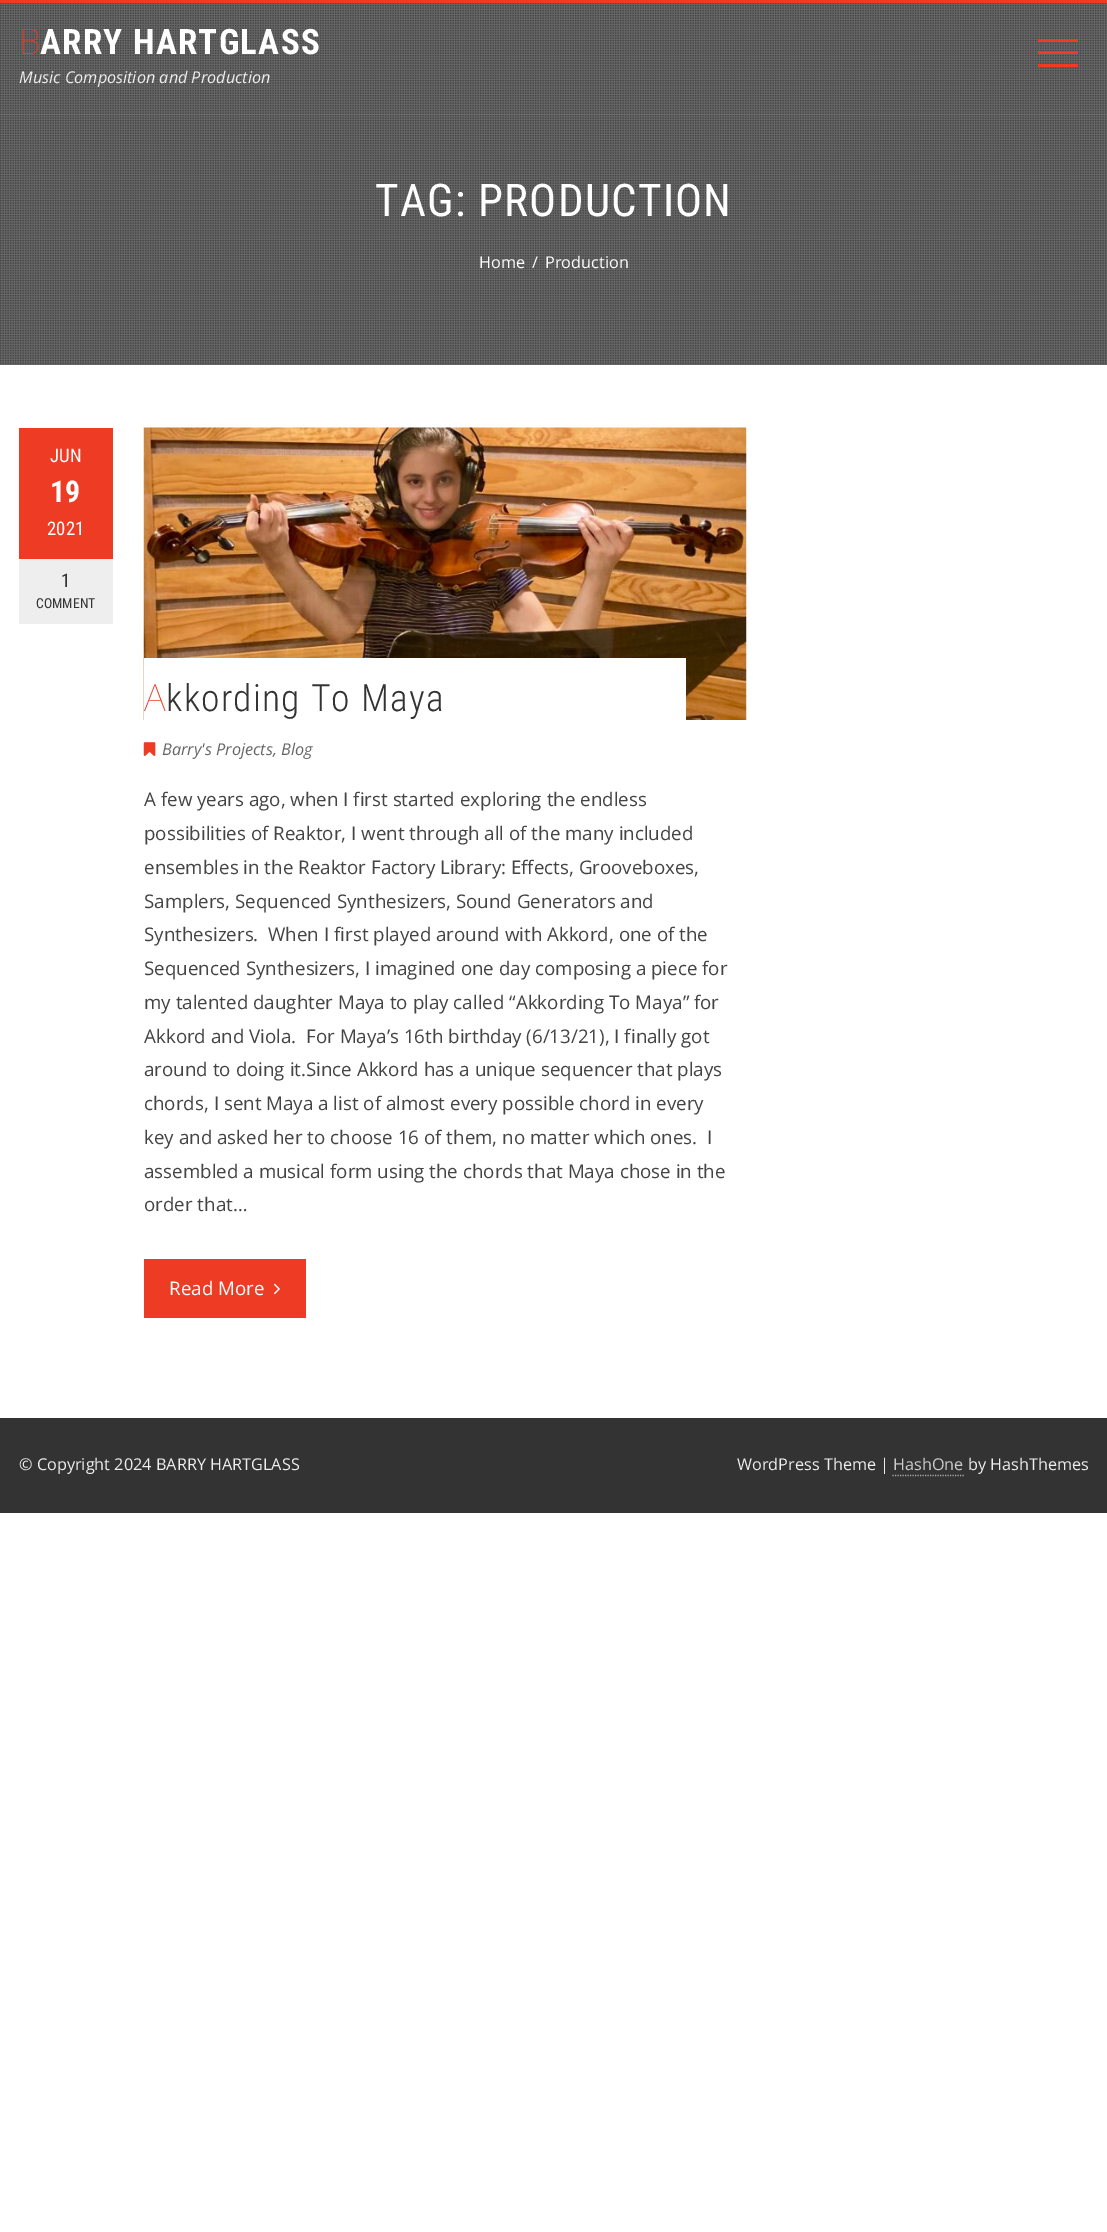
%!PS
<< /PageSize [1107 2232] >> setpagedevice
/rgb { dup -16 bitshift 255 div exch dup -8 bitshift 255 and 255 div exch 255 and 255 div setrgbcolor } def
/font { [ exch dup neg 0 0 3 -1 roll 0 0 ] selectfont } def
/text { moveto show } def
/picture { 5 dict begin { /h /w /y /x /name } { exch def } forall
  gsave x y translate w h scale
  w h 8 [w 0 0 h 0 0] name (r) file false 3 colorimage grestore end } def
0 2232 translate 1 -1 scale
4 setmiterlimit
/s1 { /OpenSans-Italic 16.25 font 16#EEEEEE rgb } def
/s2 { /OpenSans-Regular 16.25 font 16#FFFFFF rgb } def
/s3 { /RobotoCondensed-Regular 18.75 font 16#FFFFFF rgb } def
/s4 { /RobotoCondensed-Bold 30 font 16#FFFFFF rgb } def
/s5 { /RobotoCondensed-Regular 18.75 font 16#333333 rgb } def
/s6 { /RobotoCondensed-Regular 13.75 font 16#333333 rgb } def
/s7 { /OpenSans-Italic 16.25 font 16#666666 rgb } def
/s8 { /OpenSans-Regular 18.75 font 16#444444 rgb } def
/s9 { /OpenSans-Regular 18.75 font 16#FFFFFF rgb } def
/s10 { /OpenSans-Regular 16.25 font 16#EEEEEE rgb } def
/s11 { /OpenSans-Regular 16.25 font 16#CCCCCC rgb } def
16#FFFFFF rgb
0 0 1107 2232 rectfill
16#EE3B24 rgb
0 0 1107 3 rectfill
(pic1.raw) 0 3 1107 362 picture
16#6D6D6D rgb
0 114 1107 1 rectfill
/NotoSans-Thin 35 font
16#EE3B24 rgb
19 54 moveto 1.25 0 (B) ashow
/RobotoCondensed-Bold 35 font
16#FFFFFF rgb
40 54 moveto 1.25 0 (ARRY HARTGLASS) ashow
s1
(Music Composition and Production) 19 83 text
16#EE3B24 rgb
1038 39 40 3 rectfill
1038 64 40 3 rectfill
1038 51 40 3 rectfill
/RobotoCondensed-Regular 45 font
16#FFFFFF rgb
375 216 moveto 1.25 0 (TAG: PRODUCTION) ashow
s2
(Home) 479 268 text
(/) 532 268 text
(Production) 545 268 text
16#EE3B24 rgb
19 428 94 131 rectfill
s3
(JUN) 50 462 text
s4
(19) 50 502 text
s3
(2021) 47 535 text
16#EEEEEE rgb
19 559 94 65 rectfill
s5
(1) 61 587 text
s6
(COMMENT) 36 608 text
(pic2.raw) 143 427 604 293 picture
16#FFFFFF rgb
144 658 542 62 rectfill
/NotoSans-Thin 37.5 font
16#EE3B24 rgb
144 711 moveto 1.25 0 (A) ashow
/RobotoCondensed-Light 37.5 font
16#333333 rgb
166 711 moveto 1.25 0 (kkording To Maya) ashow
(pic3.raw) 143 742 13 14 picture
s7
(Barry's Projects, Blog) 162 755 text
s8
(A few years ago, when I first started exploring the endless) 144 806 text
(possibilities of Reaktor, I went through all of the many included) 144 840 text
(ensembles in the Reaktor Factory Library: Effects, Grooveboxes,) 144 874 text
(Samplers, Sequenced Synthesizers, Sound Generators and) 144 908 text
(Synthesizers.  When I first played around with Akkord, one of the) 144 941 text
(Sequenced Synthesizers, I imagined one day composing a piece for) 144 975 text
(my talented daughter Maya to play called “Akkording To Maya” for) 144 1009 text
(Akkord and Viola.  For Maya’s 16th birthday \(6/13/21\), I finally got) 144 1043 text
(around to doing it.Since Akkord has a unique sequencer that plays) 144 1076 text
(chords, I sent Maya a list of almost every possible chord in every) 144 1110 text
(key and asked her to choose 16 of them, no matter which ones.  I) 144 1144 text
(assembled a musical form using the chords that Maya chose in the) 144 1178 text
(order that…) 144 1211 text
16#EE3B24 rgb
144 1259 162 59 rectfill
s9
(Read More) 169 1295 text
(pic4.raw) 273 1283 7 12 picture
16#333333 rgb
0 1418 1107 95 rectfill
s10
(© Copyright 2024 BARRY HARTGLASS) 19 1470 text
(WordPress Theme |) 737 1470 text
s11
(HashOne) 893 1470 text
16#AAAAAA rgb
1.2 setlinewidth
[1.25 1.25] 0 setdash
892.5 1475.5 moveto 964 1475.5 lineto stroke
s10
(by HashThemes) 968 1470 text
showpage
